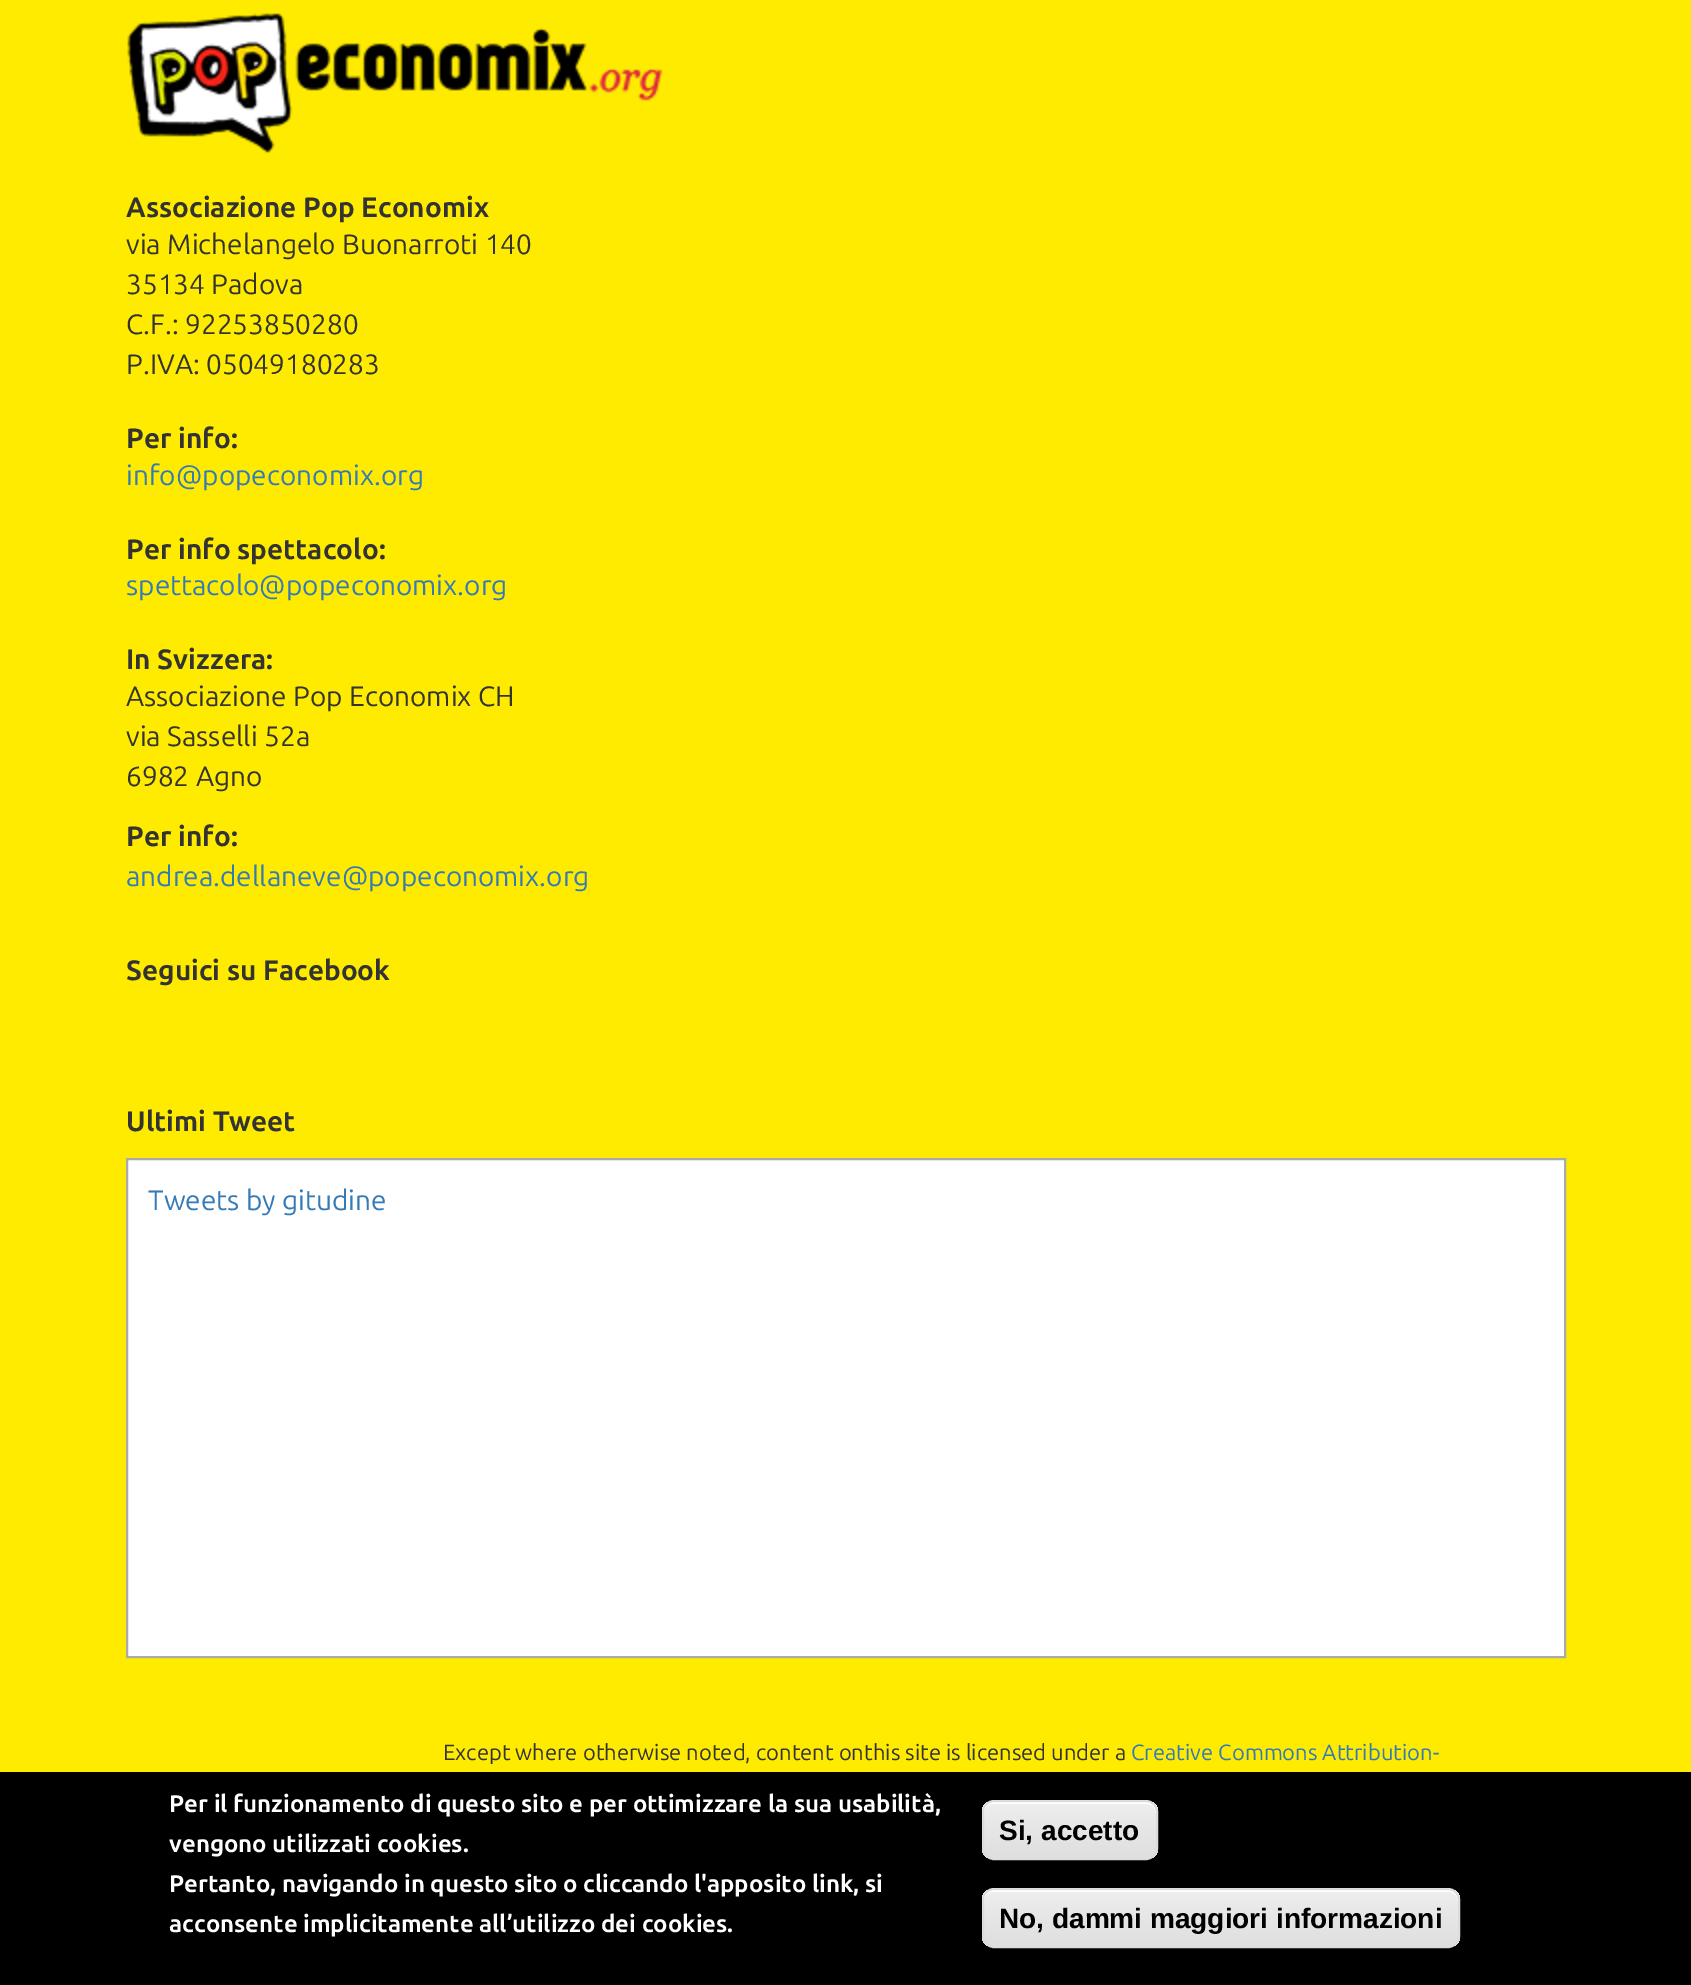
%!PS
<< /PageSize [1691 1985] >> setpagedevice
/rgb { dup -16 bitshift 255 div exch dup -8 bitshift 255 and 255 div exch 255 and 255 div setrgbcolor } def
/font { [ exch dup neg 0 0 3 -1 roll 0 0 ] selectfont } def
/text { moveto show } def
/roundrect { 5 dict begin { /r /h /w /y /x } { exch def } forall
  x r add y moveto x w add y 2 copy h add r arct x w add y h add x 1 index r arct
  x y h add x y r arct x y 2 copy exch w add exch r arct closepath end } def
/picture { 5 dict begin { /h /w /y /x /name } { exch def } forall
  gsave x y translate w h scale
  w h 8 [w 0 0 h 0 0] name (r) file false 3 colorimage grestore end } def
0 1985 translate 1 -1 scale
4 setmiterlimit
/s1 { /Ubuntu-Bold 28 font 16#333333 rgb } def
/s2 { /Ubuntu-Regular 28 font 16#333333 rgb } def
/s3 { /Ubuntu-Regular 28 font 16#337AB7 rgb } def
/s4 { /Ubuntu-Regular 22 font 16#333333 rgb } def
/s5 { /Ubuntu-Regular 22 font 16#337AB7 rgb } def
/s6 { /Ubuntu-Bold 24 font 16#FFFFFF rgb } def
/s7 { /LiberationSans-Bold 28 font 16#000000 rgb } def
16#FFEB00 rgb
0 0 1691 1985 rectfill
(pic1.raw) 127 13 536 140 picture
s1
(Associazione Pop Economix) 126 217 text
s2
(via Michelangelo Buonarroti 140) 126 254 text
(35134 Padova) 126 294 text
(C.F.: 92253850280) 126 334 text
(P.IVA: 05049180283) 126 374 text
s1
(Per info:) 126 448 text
s3
(info@popeconomix.org) 126 485 text
s1
(Per info spettacolo:) 126 559 text
s3
(spettacolo@popeconomix.org) 126 595 text
s1
(In Svizzera:) 126 669 text
s2
(Associazione Pop Economix CH) 126 706 text
(via Sasselli 52a) 126 746 text
(6982 Agno) 126 786 text
s1
(Per info:) 126 846 text
s3
(andrea.dellaneve@popeconomix.org) 126 886 text
s1
(Seguici su Facebook) 126 980 text
(Ultimi Tweet) 126 1131 text
16#FFFFFF rgb
127 1159 moveto 1565 1159 lineto 1565 1657 lineto 127 1657 lineto closepath gsave fill grestore
16#AAAAAA rgb
2 setlinewidth
stroke
s3
(Tweets by gitudine) 148 1210 text
s4
(Except where otherwise noted, content onthis site is licensed under a) 443 1760 text
s5
(Creative Commons Attribution-) 1131 1760 text
16#000000 rgb
0 1772 1691 213 rectfill
s6
(Per il funzionamento di questo sito e per ottimizzare la sua usabilità,) 169 1812 text
(vengono utilizzati cookies.) 169 1852 text
(Pertanto, navigando in questo sito o cliccando l'apposito link, si) 169 1892 text
(acconsente implicitamente all’utilizzo dei cookies.) 169 1932 text
gsave
982 1800 176 60 12 roundrect clip newpath
gsave 982 1802 moveto 1158 1802 lineto 1158 1858 lineto 982 1858 lineto closepath clip newpath
<< /ShadingType 2 /ColorSpace /DeviceRGB /Coords [1070 1802 1070 1858] /Extend [true true] /Function << /FunctionType 3 /Domain [0 1] /Functions [<< /FunctionType 2 /Domain [0 1] /C0 [0.929 0.929 0.929] /C1 [0.929 0.929 0.929] /N 1 >> << /FunctionType 2 /Domain [0 1] /C0 [0.929 0.929 0.929] /C1 [0.875 0.875 0.875] /N 1 >>] /Bounds [0.05] /Encode [0 1 0 1] >> >> shfill grestore
grestore
994 1804 moveto 1146 1804 lineto 1152 1804 1156 1808 1156 1814 curveto 1156 1812 lineto 1156 1806 1152 1802 1146 1802 curveto 994 1802 lineto 988 1802 984 1806 984 1812 curveto 984 1814 lineto 984 1808 988 1804 994 1804 curveto closepath fill
16#DCDCDC rgb
983 1801 174 58 11 roundrect stroke
s7
(Si, accetto) 999 1840 text
gsave
982 1888 478 60 12 roundrect clip newpath
gsave 982 1890 moveto 1460 1890 lineto 1460 1946 lineto 982 1946 lineto closepath clip newpath
<< /ShadingType 2 /ColorSpace /DeviceRGB /Coords [1221 1890 1221 1946] /Extend [true true] /Function << /FunctionType 3 /Domain [0 1] /Functions [<< /FunctionType 2 /Domain [0 1] /C0 [0.929 0.929 0.929] /C1 [0.929 0.929 0.929] /N 1 >> << /FunctionType 2 /Domain [0 1] /C0 [0.929 0.929 0.929] /C1 [0.875 0.875 0.875] /N 1 >>] /Bounds [0.05] /Encode [0 1 0 1] >> >> shfill grestore
grestore
16#FFFFFF rgb
994 1892 moveto 1448 1892 lineto 1454 1892 1458 1896 1458 1902 curveto 1458 1900 lineto 1458 1894 1454 1890 1448 1890 curveto 994 1890 lineto 988 1890 984 1894 984 1900 curveto 984 1902 lineto 984 1896 988 1892 994 1892 curveto closepath fill
16#DCDCDC rgb
983 1889 476 58 11 roundrect stroke
s7
(No, dammi maggiori informazioni) 999 1928 text
showpage
